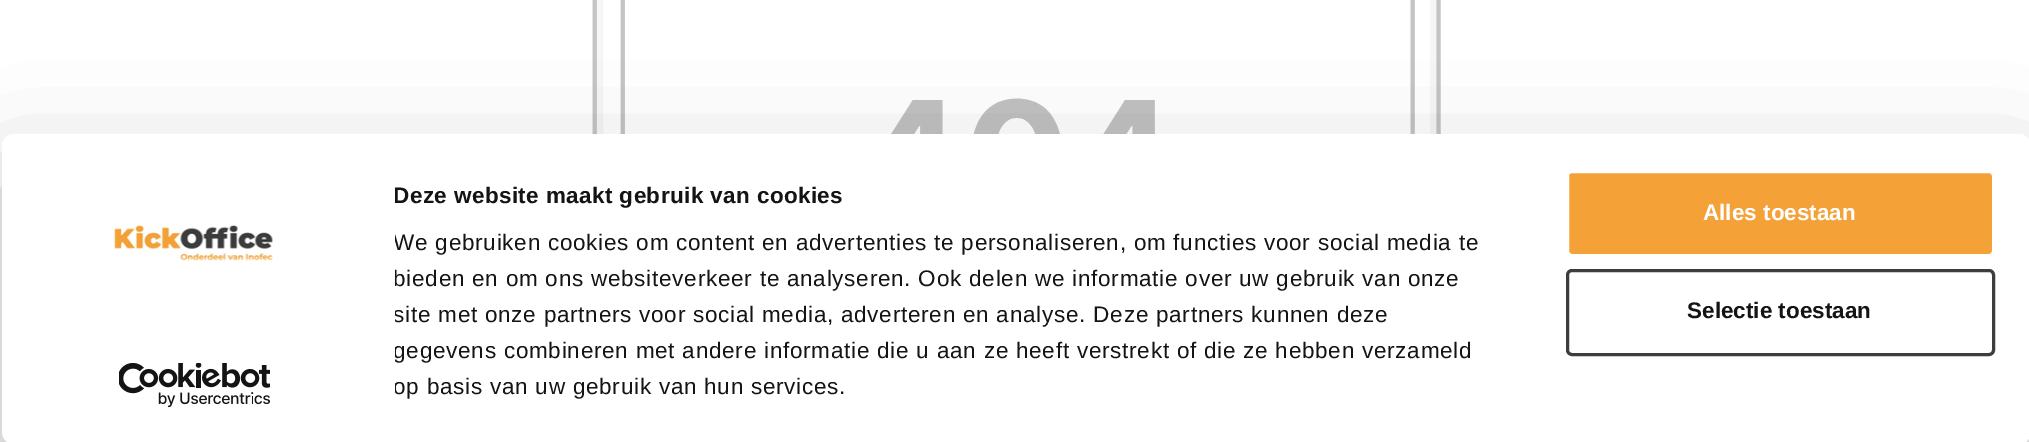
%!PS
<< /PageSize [2029 442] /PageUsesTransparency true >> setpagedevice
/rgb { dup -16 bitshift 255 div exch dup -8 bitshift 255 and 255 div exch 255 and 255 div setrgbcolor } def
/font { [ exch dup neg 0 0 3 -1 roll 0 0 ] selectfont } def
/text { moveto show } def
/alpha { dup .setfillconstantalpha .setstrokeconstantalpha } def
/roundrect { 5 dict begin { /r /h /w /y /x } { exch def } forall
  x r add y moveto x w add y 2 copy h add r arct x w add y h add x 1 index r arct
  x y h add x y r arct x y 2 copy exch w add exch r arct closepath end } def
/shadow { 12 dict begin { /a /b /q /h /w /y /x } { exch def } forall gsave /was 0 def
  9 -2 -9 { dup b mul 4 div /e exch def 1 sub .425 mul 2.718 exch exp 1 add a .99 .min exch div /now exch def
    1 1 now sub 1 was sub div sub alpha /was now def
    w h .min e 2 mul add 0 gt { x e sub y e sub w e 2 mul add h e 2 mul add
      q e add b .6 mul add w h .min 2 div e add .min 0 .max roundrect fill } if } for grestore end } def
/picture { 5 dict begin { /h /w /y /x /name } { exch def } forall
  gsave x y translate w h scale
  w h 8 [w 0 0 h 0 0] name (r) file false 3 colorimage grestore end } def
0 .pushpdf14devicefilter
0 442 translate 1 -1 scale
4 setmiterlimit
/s1 { /LiberationSans-Bold 22.5 font 16#FFFFFF rgb } def
/s2 { /LiberationSans-Bold 22.5 font 16#141414 rgb } def
16#FFFFFF rgb
0 0 2029 442 rectfill
(pic1.raw) 592 0 849 134 picture
gsave
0 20 moveto 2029 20 lineto 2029 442 lineto 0 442 lineto closepath 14 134 moveto 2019 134 lineto 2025.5 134 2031 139.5 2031 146 curveto 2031 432 lineto 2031 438.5 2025.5 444 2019 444 curveto 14 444 lineto 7.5 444 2 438.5 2 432 curveto 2 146 lineto 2 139.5 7.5 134 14 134 curveto closepath eoclip newpath
16#000000 rgb
2 179 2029 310 12 52.5 0.3 shadow
grestore
2 134 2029 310 12 roundrect fill
(pic2.raw) 114 225 159 36 picture
(pic3.raw) 119 363 151 45 picture
gsave
395 179 1128 226 rectclip
/LiberationSans-Bold 22.5 font
16#141414 rgb
393 203 moveto 0.4 0 (Deze website maakt gebruik van cookies) ashow
/LiberationSans-Regular 22.5 font
393 250 moveto 0.75 0 (We gebruiken cookies om content en advertenties te personaliseren, om functies voor social media te) ashow
393 286 moveto 0.75 0 (bieden en om ons websiteverkeer te analyseren. Ook delen we informatie over uw gebruik van onze) ashow
393 322 moveto 0.75 0 (site met onze partners voor social media, adverteren en analyse. Deze partners kunnen deze) ashow
393 358 moveto 0.75 0 (gegevens combineren met andere informatie die u aan ze heeft verstrekt of die ze hebben verzameld) ashow
393 394 moveto 0.75 0 (op basis van uw gebruik van hun services.) ashow
grestore
16#F4A238 rgb
1567.5 171.5 426 84 4.5 roundrect gsave fill grestore
16#FFFFFF rgb
3 setlinewidth
stroke
s1
(Alles toestaan) 1703 220 text
16#3D3D3D rgb
1567.5 270.5 426 84 4.5 roundrect stroke
s2
(Selectie toestaan) 1687 318 text
.poppdf14devicefilter showpage
